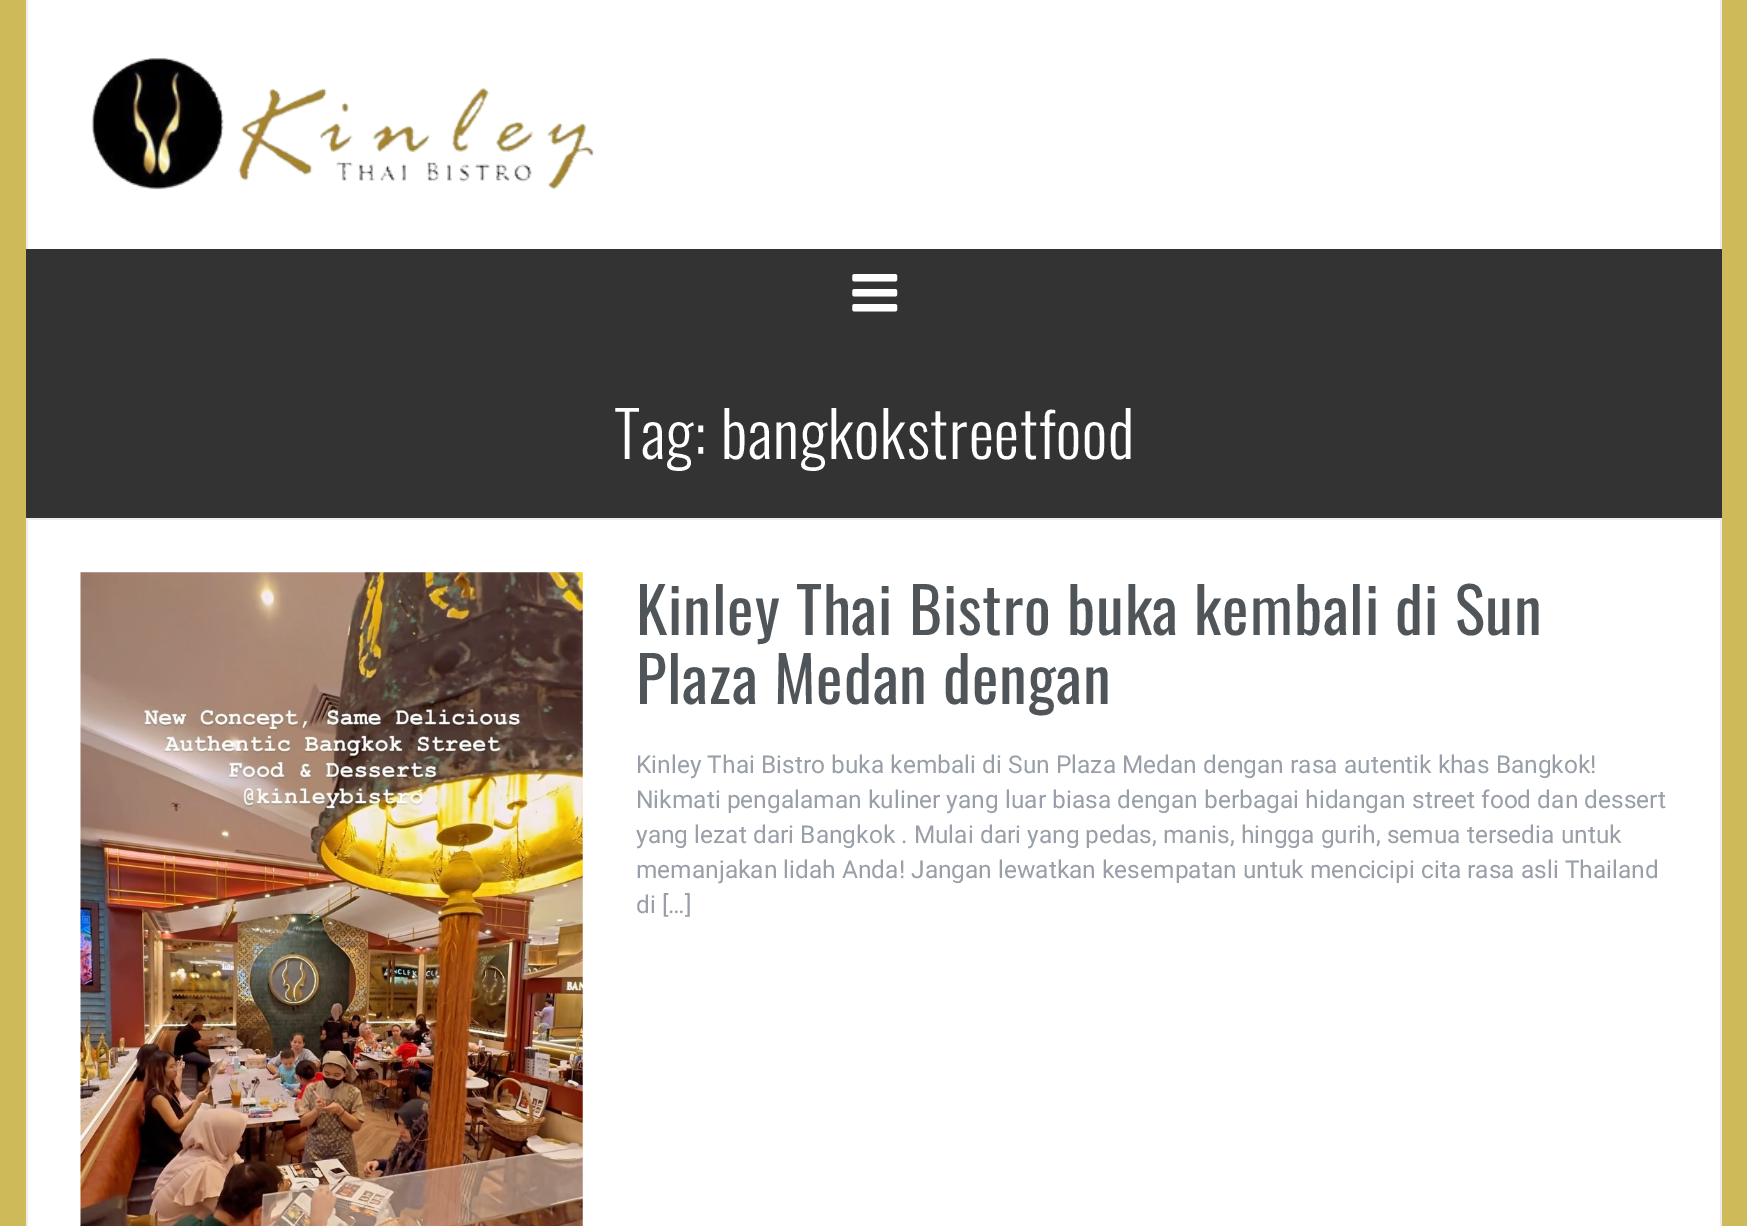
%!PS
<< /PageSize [1747 1226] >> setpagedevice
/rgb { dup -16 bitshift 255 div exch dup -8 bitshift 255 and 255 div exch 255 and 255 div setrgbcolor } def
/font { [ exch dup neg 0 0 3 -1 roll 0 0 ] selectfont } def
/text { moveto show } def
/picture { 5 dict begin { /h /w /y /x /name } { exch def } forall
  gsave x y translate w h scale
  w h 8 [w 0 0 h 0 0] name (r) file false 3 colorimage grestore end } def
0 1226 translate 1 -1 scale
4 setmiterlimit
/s1 { /Roboto-Regular 24.5 font 16#989FA8 rgb } def
16#CEBA58 rgb
0 0 1747 1226 rectfill
16#FFFFFF rgb
28 0 1692 249 rectfill
16#EBEBEB rgb
1720 0 2 249 rectfill
26 0 2 249 rectfill
(pic1.raw) 91 58 504 132 picture
16#333333 rgb
26 249 1696 269 rectfill
(pic2.raw) 852 274 46 38 picture
16#EEEEEE rgb
26 518 1696 2 rectfill
/Oswald-Light 63 font
16#FFFFFF rgb
614 459 moveto 0.9 0 (Tag: bangkokstreetfood) ashow
28 520 1692 706 rectfill
16#EBEBEB rgb
1720 520 2 706 rectfill
26 520 2 706 rectfill
(pic3.raw) 80 572 503 654 picture
/Oswald-Regular 63 font
16#505559 rgb
636 635 moveto 0.9 0 (Kinley Thai Bistro buka kembali di Sun) ashow
636 704 moveto 0.9 0 (Plaza Medan dengan) ashow
s1
(Kinley Thai Bistro buka kembali di Sun Plaza Medan dengan rasa autentik khas Bangkok!) 636 773 text
(Nikmati pengalaman kuliner yang luar biasa dengan berbagai hidangan street food dan dessert) 636 808 text
(yang lezat dari Bangkok . Mulai dari yang pedas, manis, hingga gurih, semua tersedia untuk) 636 843 text
(memanjakan lidah Anda! Jangan lewatkan kesempatan untuk mencicipi cita rasa asli Thailand) 636 878 text
(di […]) 636 913 text
showpage
